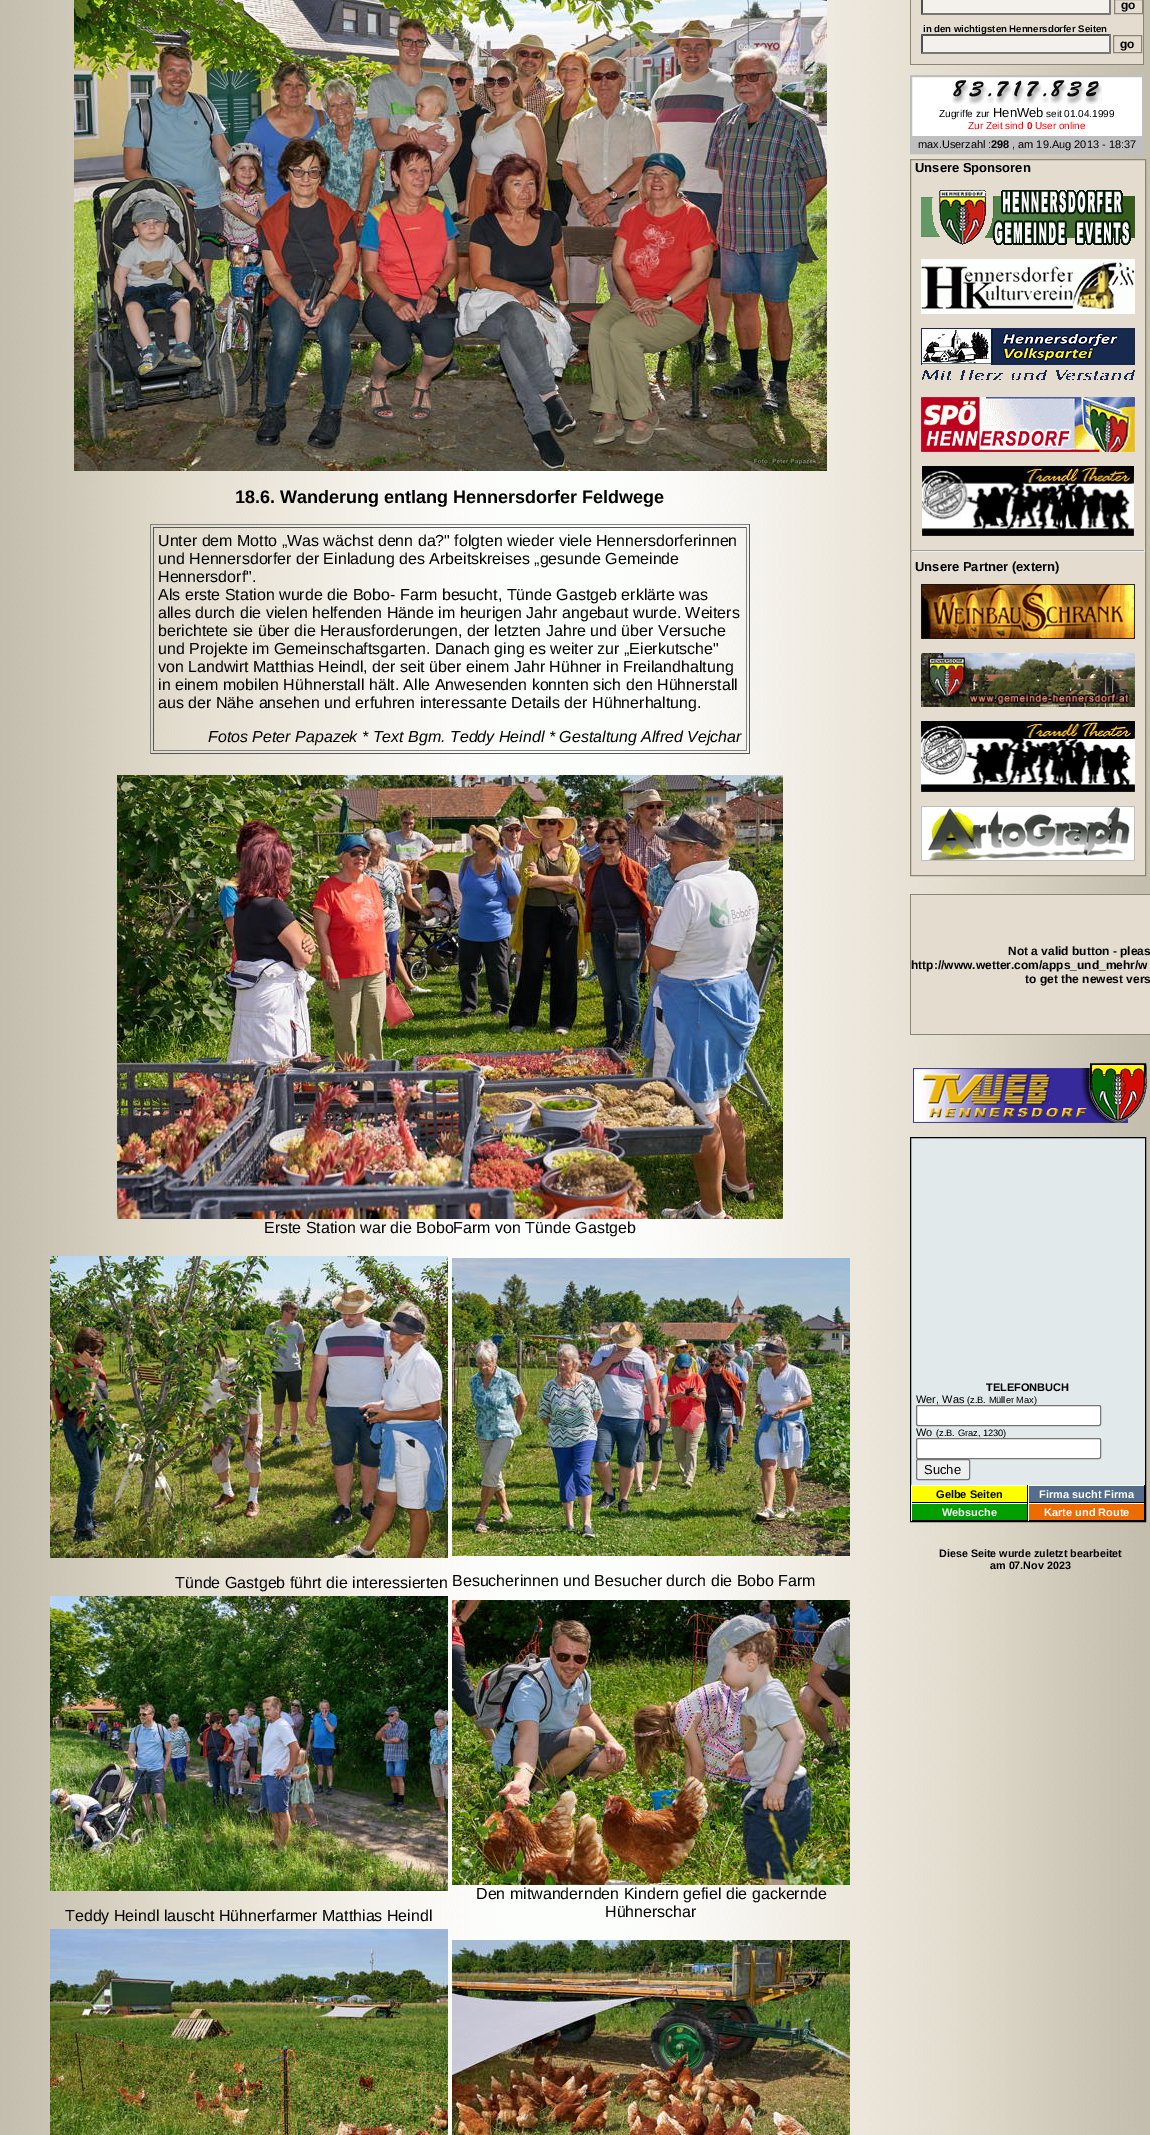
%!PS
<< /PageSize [1150 2135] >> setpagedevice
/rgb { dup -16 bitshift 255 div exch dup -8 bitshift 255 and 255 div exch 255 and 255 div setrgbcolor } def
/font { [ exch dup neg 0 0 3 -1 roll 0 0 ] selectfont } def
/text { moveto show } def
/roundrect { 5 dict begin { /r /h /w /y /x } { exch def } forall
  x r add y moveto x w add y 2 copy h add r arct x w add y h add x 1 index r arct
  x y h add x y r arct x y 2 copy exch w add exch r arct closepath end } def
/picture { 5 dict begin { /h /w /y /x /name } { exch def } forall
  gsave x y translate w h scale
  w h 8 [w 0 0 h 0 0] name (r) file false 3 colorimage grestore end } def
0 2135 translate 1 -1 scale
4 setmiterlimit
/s1 { /LiberationSans-Bold 18 font 16#000000 rgb } def
/s2 { /LiberationSans-Regular 16 font 16#000000 rgb } def
/s3 { /LiberationSans-Italic 16 font 16#000000 rgb } def
/s4 { /LiberationSans-Bold 12 font 16#000000 rgb } def
/s5 { /LiberationSans-Bold 9.6 font 16#000000 rgb } def
/s6 { /LiberationSans-Regular 10 font 16#000000 rgb } def
/s7 { /LiberationSans-Regular 13 font 16#000000 rgb } def
/s8 { /LiberationSans-Regular 10 font 16#FF0000 rgb } def
/s9 { /LiberationSans-Bold 10 font 16#FF0000 rgb } def
/s10 { /LiberationSans-Regular 11 font 16#000000 rgb } def
/s11 { /LiberationSans-Bold 11 font 16#000000 rgb } def
/s12 { /LiberationSans-Bold 13 font 16#000000 rgb } def
/s13 { /LiberationSans-Regular 9.25 font 16#000000 rgb } def
/s14 { /LiberationSans-Bold 11 font 16#FFFFFF rgb } def
/s15 { /LiberationSans-Bold 10.75 font 16#000000 rgb } def
16#FFFFFF rgb
0 0 1150 2135 rectfill
(pic1.raw) 0 0 1150 2135 picture
(pic2.raw) 74 0 753 471 picture
s1
(18.6. Wanderung entlang Hennersdorfer Feldwege) 235 503 text
16#808080 rgb
150 524 600 1 rectfill
16#555555 rgb
749 524 1 230 rectfill
150 753 600 1 rectfill
16#808080 rgb
150 524 1 230 rectfill
16#555555 rgb
153 527 594 1 rectfill
16#808080 rgb
746 527 1 224 rectfill
153 750 594 1 rectfill
16#555555 rgb
153 527 1 224 rectfill
s2
(Unter dem Motto „Was wächst denn da?" folgten wieder viele Hennersdorferinnen) 158 546 text
(und Hennersdorfer der Einladung des Arbeitskreises „gesunde Gemeinde) 158 564 text
(Hennersdorf".) 158 582 text
(Als erste Station wurde die Bobo- Farm besucht, Tünde Gastgeb erklärte was) 158 600 text
(alles durch die vielen helfenden Hände im heurigen Jahr angebaut wurde. Weiters) 158 618 text
(berichtete sie über die Herausforderungen, der letzten Jahre und über Versuche) 158 636 text
(und Projekte im Gemeinschaftsgarten. Danach ging es weiter zur „Eierkutsche") 158 654 text
(von Landwirt Matthias Heindl, der seit über einem Jahr Hühner in Freilandhaltung) 158 672 text
(in einem mobilen Hühnerstall hält. Alle Anwesenden konnten sich den Hühnerstall) 158 690 text
(aus der Nähe ansehen und erfuhren interessante Details der Hühnerhaltung.) 158 708 text
s3
(Fotos Peter Papazek * Text Bgm. Teddy Heindl * Gestaltung Alfred Vejchar) 208 742 text
(pic3.raw) 117 775 666 444 picture
s2
(Erste Station war die BoboFarm von Tünde Gastgeb) 264 1233 text
(pic4.raw) 50 1256 398 302 picture
(Tünde Gastgeb führt die interessierten) 175 1588 text
(pic5.raw) 452 1258 398 298 picture
(Besucherinnen und Besucher durch die Bobo Farm) 452 1586 text
(pic6.raw) 50 1596 398 295 picture
(Teddy Heindl lauscht Hühnerfarmer Matthias Heindl) 65 1921 text
(pic7.raw) 452 1600 398 285 picture
(Den mitwandernden Kindern gefiel die gackernde) 476 1899 text
(Hühnerschar) 605 1917 text
(pic8.raw) 50 1929 398 206 picture
(pic9.raw) 452 1940 398 195 picture
16#E4DDCF rgb
911 0 232 64 rectfill
16#8D8573 rgb
1143 0 1 65 rectfill
910 64 234 1 rectfill
910 0 1 65 rectfill
16#F4F1EC rgb
921 0 190 15 rectfill
16#767676 rgb
1111 -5 moveto 1111 15 lineto 1109 13 lineto 1109 -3 lineto closepath fill
1111 15 moveto 921 15 lineto 923 13 lineto 1109 13 lineto closepath fill
16#4F4F4F rgb
921 15 moveto 921 -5 lineto 923 -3 lineto 923 13 lineto closepath fill
16#8D8573 rgb
1114.5 -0.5 28 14 rectstroke
s4
(go) 1121 9 text
s5
(in den wichtigsten Hennersdorfer Seiten) 923 32 text
16#F4F1EC rgb
921 34 190 20 rectfill
16#4F4F4F rgb
921 34 moveto 1111 34 lineto 1109 36 lineto 923 36 lineto closepath fill
16#767676 rgb
1111 34 moveto 1111 54 lineto 1109 52 lineto 1109 36 lineto closepath fill
1111 54 moveto 921 54 lineto 923 52 lineto 1109 52 lineto closepath fill
16#4F4F4F rgb
921 54 moveto 921 34 lineto 923 36 lineto 923 52 lineto closepath fill
16#8D8573 rgb
1113.5 35.5 28 17 rectstroke
s4
(go) 1120 48 text
16#FFFFFF rgb
912 77 230 59 rectfill
16#BFBFBF rgb
2 setlinewidth
911 76 232 77 rectstroke
(pic10.raw) 952 80 17 24 picture
(pic11.raw) 969 81 18 24 picture
(pic12.raw) 987 93 7 10 picture
(pic13.raw) 996 81 16 23 picture
(pic14.raw) 1012 80 13 23 picture
(pic13.raw) 1026 81 16 23 picture
(pic12.raw) 1042 93 7 10 picture
(pic10.raw) 1050 80 17 24 picture
(pic11.raw) 1067 81 18 24 picture
(pic15.raw) 1085 81 17 23 picture
s6
(Zugriffe zur) 939 117 text
s7
(HenWeb) 993 117 text
s6
(seit 01.04.1999) 1046 117 text
s8
(Zur Zeit sind) 968 129 text
s9
(0) 1027 129 text
s8
(User online) 1035 129 text
16#BFBFBF rgb
912 136 230 16 rectfill
s10
(max.Userzahl :) 918 148 text
s11
(298) 991 148 text
s10
(, am 19.Aug 2013 - 18:37) 1012 148 text
16#E4DDCF rgb
910.5 159.5 moveto 1145.5 159.5 lineto 1145.5 875.5 lineto 910.5 875.5 lineto closepath gsave fill grestore
16#8D8573 rgb
1 setlinewidth
stroke
s12
(Unsere Sponsoren) 915 172 text
(pic16.raw) 921 190 214 55 picture
(pic17.raw) 921 259 214 55 picture
(pic18.raw) 921 328 214 52 picture
(pic19.raw) 921 397 214 55 picture
(pic20.raw) 922 466 212 70 picture
16#9F9F9F rgb
911 550 234 1 rectfill
16#EEEEEE rgb
1144 550 1 2 rectfill
911 551 234 1 rectfill
16#9F9F9F rgb
911 550 1 2 rectfill
s12
(Unsere Partner \(extern\)) 915 571 text
(pic21.raw) 921 584 214 55 picture
(pic22.raw) 921 653 214 54 picture
(pic23.raw) 921 721 214 71 picture
(pic24.raw) 921 806 214 55 picture
16#E4DDCF rgb
911 895 239 139 rectfill
16#8D8573 rgb
910 894 240 1 rectfill
910 1034 240 1 rectfill
910 894 1 141 rectfill
s4
(Not a valid button - pleas) 1008 955 text
(http://www.wetter.com/apps_und_mehr/w) 911 969 text
(to get the newest vers) 1025 983 text
(pic25.raw) 913 1063 234 60 picture
16#E1E9EB rgb
911 1138 234 347 rectfill
16#000000 rgb
910.5 1137.5 235 384 rectstroke
s11
(TELEFONBUCH) 986 1391 text
s10
(Wer, Was) 916 1403 text
s13
(\(z.B. Müller Max\)) 967 1403 text
16#FFFFFF rgb
916.5 1405.5 184 20 1.5 roundrect gsave fill grestore
16#767676 rgb
stroke
s10
(Wo) 916 1436 text
s13
(\(z.B. Graz, 1230\)) 936 1436 text
16#FFFFFF rgb
916.5 1438.5 184 20 1.5 roundrect gsave fill grestore
16#767676 rgb
stroke
16#EFEFEF rgb
916.5 1459.5 53 20 1.5 roundrect gsave fill grestore
16#767676 rgb
stroke
s7
(Suche) 924 1474 text
16#FFFF00 rgb
912 1486 115 16 rectfill
16#FFFFFF rgb
911 1485 234 1 rectfill
16#000000 rgb
1027 1485 1 18 rectfill
911 1502 117 1 rectfill
16#FFFFFF rgb
911 1485 1 18 rectfill
s11
(Gelbe Seiten) 936 1498 text
16#546D8B rgb
1029 1486 115 16 rectfill
16#000000 rgb
1144 1485 1 18 rectfill
1028 1502 117 1 rectfill
16#FFFFFF rgb
1028 1485 1 18 rectfill
(Firma sucht Firma) 1039 1498 text
16#009F00 rgb
912 1504 115 16 rectfill
16#FFFFFF rgb
911 1503 234 1 rectfill
16#000000 rgb
1027 1503 1 18 rectfill
911 1520 117 1 rectfill
16#FFFFFF rgb
911 1503 1 18 rectfill
(Websuche) 942 1516 text
16#ED6C02 rgb
1029 1504 115 16 rectfill
16#000000 rgb
1144 1503 1 18 rectfill
1028 1520 117 1 rectfill
16#FFFFFF rgb
1028 1503 1 18 rectfill
(Karte und Route) 1044 1516 text
s15
(Diese Seite wurde zuletzt bearbeitet) 939 1557 text
(am 07.Nov 2023) 990 1569 text
showpage
